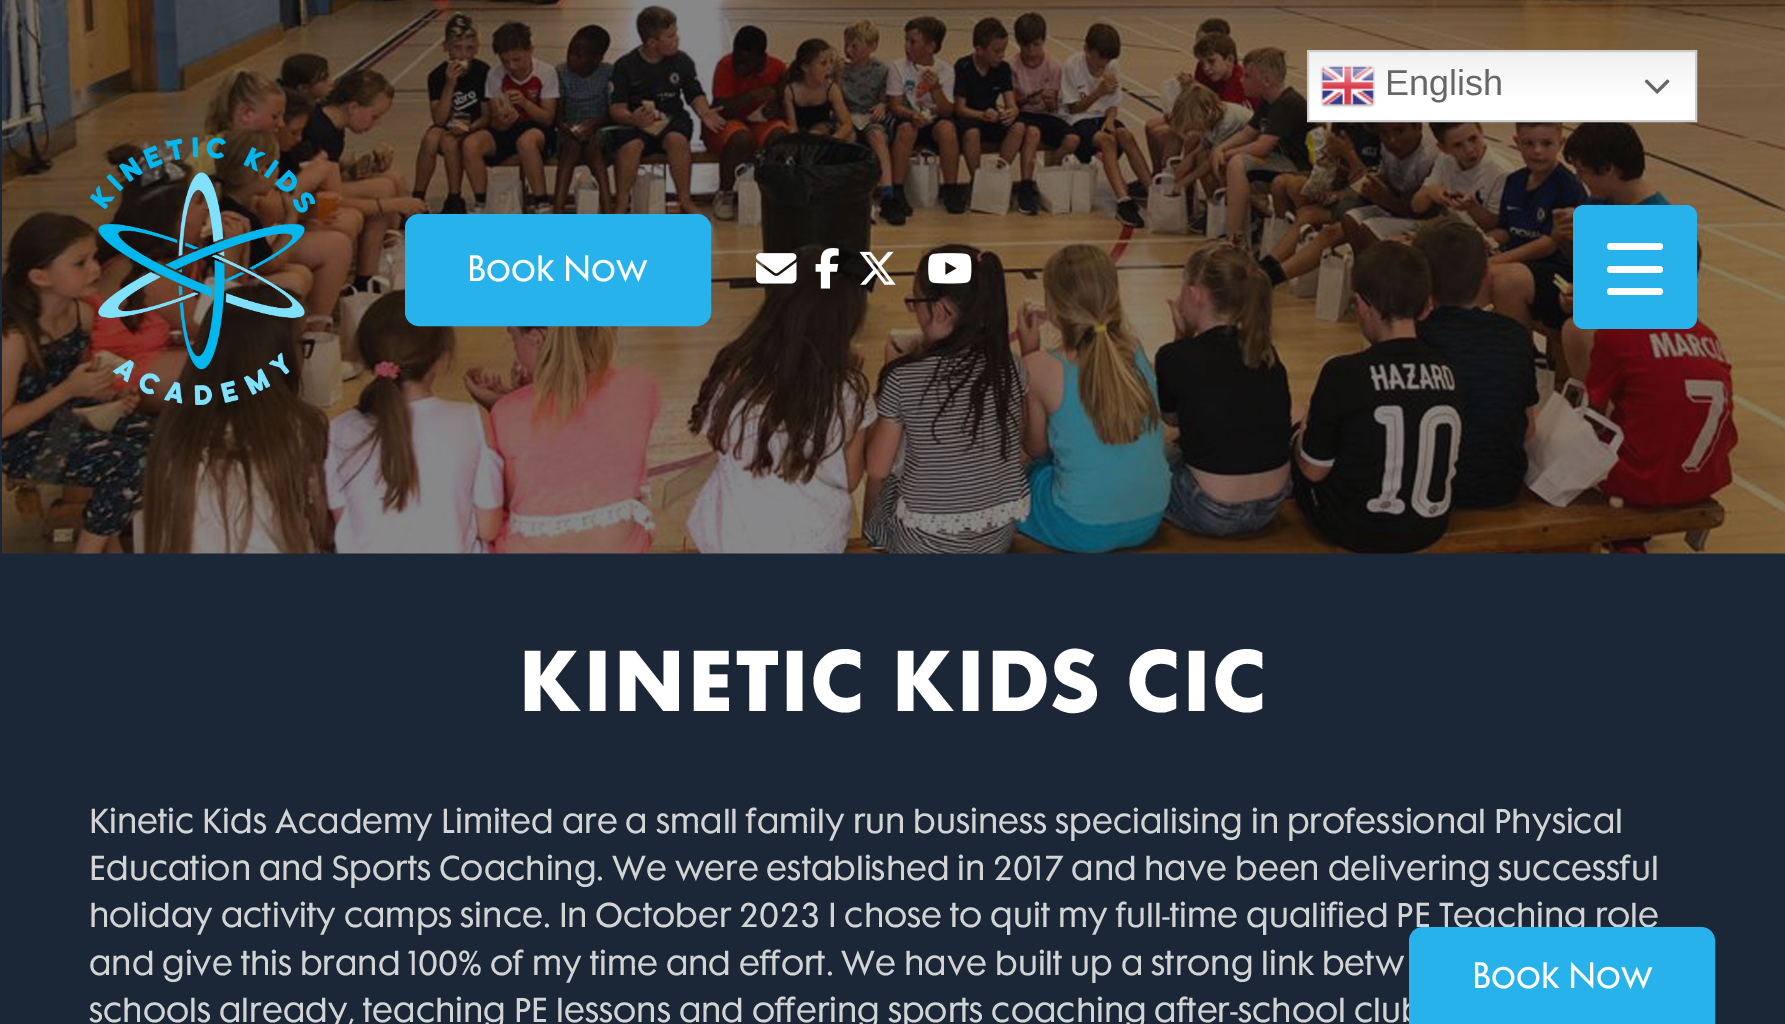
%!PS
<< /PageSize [1785 1024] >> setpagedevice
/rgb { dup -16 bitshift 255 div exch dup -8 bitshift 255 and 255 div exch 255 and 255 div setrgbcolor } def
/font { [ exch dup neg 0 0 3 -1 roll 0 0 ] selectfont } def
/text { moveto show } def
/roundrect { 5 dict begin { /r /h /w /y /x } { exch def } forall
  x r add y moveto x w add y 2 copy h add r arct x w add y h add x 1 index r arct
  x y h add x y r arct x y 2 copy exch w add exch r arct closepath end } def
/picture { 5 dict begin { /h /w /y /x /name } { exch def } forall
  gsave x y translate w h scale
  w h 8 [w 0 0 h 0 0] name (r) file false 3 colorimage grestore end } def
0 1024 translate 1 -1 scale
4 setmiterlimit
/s1 { /LiberationSans-Regular 36 font 16#666666 rgb } def
/s2 { /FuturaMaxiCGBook-Regular 33.75 font 16#FFFFFF rgb } def
/s3 { /FuturaMaxiCGBook-Regular 31.5 font 16#D2D4D4 rgb } def
16#1B2637 rgb
0 0 1785 1024 rectfill
(pic8.raw) 2 0 1783 554 picture
gsave 1309 52 moveto 1695 52 lineto 1695 120 lineto 1309 120 lineto closepath clip newpath
<< /ShadingType 2 /ColorSpace /DeviceRGB /Coords [1502 49 1502 122] /Extend [true true] /Function << /FunctionType 3 /Domain [0 1] /Functions [<< /FunctionType 2 /Domain [0 1] /C0 [0.937 0.937 0.937] /C1 [1 1 1] /N 1 >> << /FunctionType 2 /Domain [0 1] /C0 [1 1 1] /C1 [1 1 1] /N 1 >>] /Bounds [0.7] /Encode [0 1 0 1] >> >> shfill grestore
16#CCCCCC rgb
2 setlinewidth
1308 51 388 70 rectstroke
(pic1.raw) 1320 65 55 43 picture
s1
(English) 1385 95 text
(pic2.raw) 1645 79 25 15 picture
(pic3.raw) 90 137 225 268 picture
16#28B2EC rgb
408.5 217.5 299 105 10.5 roundrect gsave fill grestore
7 setlinewidth
stroke
s2
(Book Now) 467 281 text
(pic4.raw) 756 253 41 31 picture
(pic5.raw) 815 248 24 41 picture
(pic6.raw) 859 251 37 34 picture
(pic7.raw) 928 253 44 31 picture
16#28B2EC rgb
1573 205 124 124 11 roundrect fill
16#FFFFFF rgb
1607 266 56 7 3.5 roundrect fill
1607 243 56 7 3.5 roundrect fill
1607 288 56 7 3.5 roundrect fill
/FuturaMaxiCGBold-Bold 78.75 font
518 711 moveto 1.1 0 (KINETIC KIDS CIC) ashow
s3
(Kinetic Kids Academy Limited are a small family run business specialising in professional Physical) 89 833 text
(Education and Sports Coaching. We were established in 2017 and have been delivering successful) 89 880 text
(holiday activity camps since. In October 2023 I chose to quit my full-time qualified PE Teaching role) 89 927 text
(and give this brand 100% of my time and effort. We have built up a strong link betw) 89 975 text
(schools already, teaching PE lessons and offering sports coaching after-school club) 89 1022 text
16#28B2EC rgb
1423 930.5 moveto 1701 930.5 lineto 1707 930.5 1711.5 935 1711.5 941 curveto 1711.5 1022.5 lineto 1412.5 1022.5 lineto 1412.5 941 lineto 1412.5 935 1417 930.5 1423 930.5 curveto closepath gsave fill grestore
stroke
s2
(Book Now) 1472 988 text
showpage
